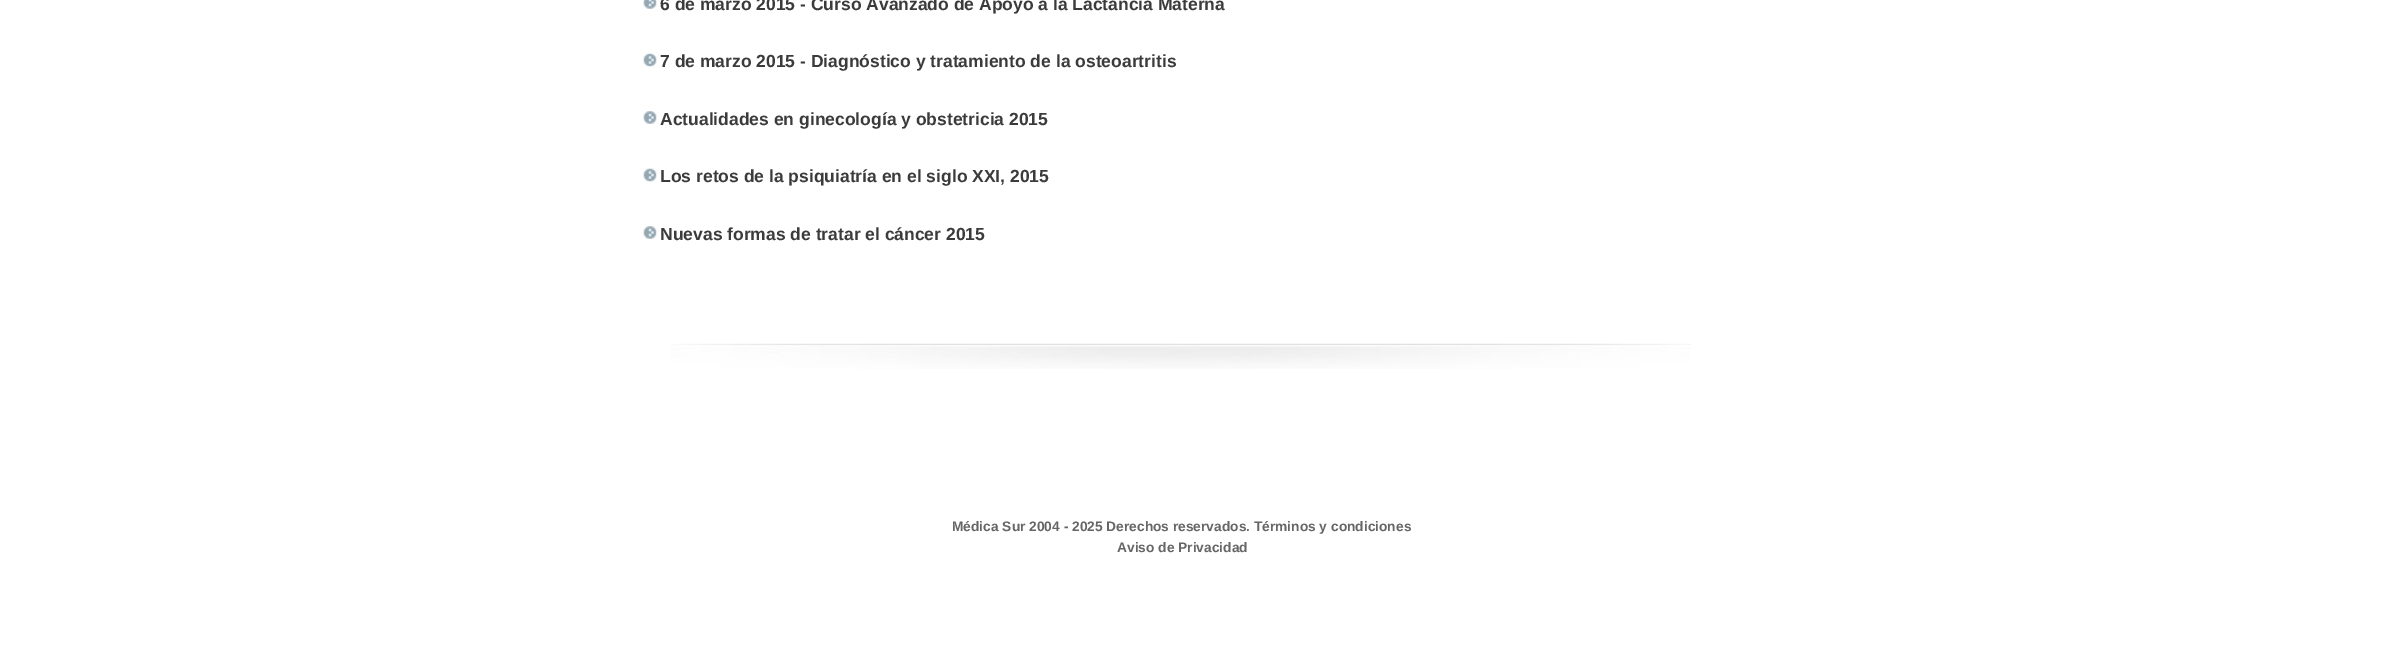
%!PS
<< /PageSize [2387 654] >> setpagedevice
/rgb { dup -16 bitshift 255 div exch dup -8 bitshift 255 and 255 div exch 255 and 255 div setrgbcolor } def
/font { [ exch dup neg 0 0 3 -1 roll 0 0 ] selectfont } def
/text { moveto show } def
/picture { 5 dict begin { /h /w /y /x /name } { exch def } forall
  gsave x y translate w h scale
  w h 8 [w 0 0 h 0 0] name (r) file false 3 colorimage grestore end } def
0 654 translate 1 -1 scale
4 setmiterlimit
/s1 { /LiberationSans-Bold 17.5 font 16#3B3B3B rgb } def
/s2 { /LiberationSans-Bold 13.75 font 16#666666 rgb } def
16#FFFFFF rgb
0 0 2387 654 rectfill
(pic1.raw) 643 0 14 9 picture
s1
(6 de marzo 2015 - Curso Avanzado de Apoyo a la Lactancia Materna) 660 10 text
(pic2.raw) 643 53 14 14 picture
(7 de marzo 2015 - Diagnóstico y tratamiento de la osteoartritis) 660 67 text
(pic3.raw) 643 111 14 13 picture
(Actualidades en ginecología y obstetricia 2015) 660 125 text
(pic2.raw) 643 168 14 14 picture
(Los retos de la psiquiatría en el siglo XXI, 2015) 660 182 text
(pic4.raw) 643 226 14 13 picture
(Nuevas formas de tratar el cáncer 2015) 660 240 text
(pic5.raw) 670 343 1021 26 picture
s2
(Médica Sur 2004 - 2025 Derechos reservados. Términos y condiciones) 952 531 text
(Aviso de Privacidad) 1117 552 text
showpage
